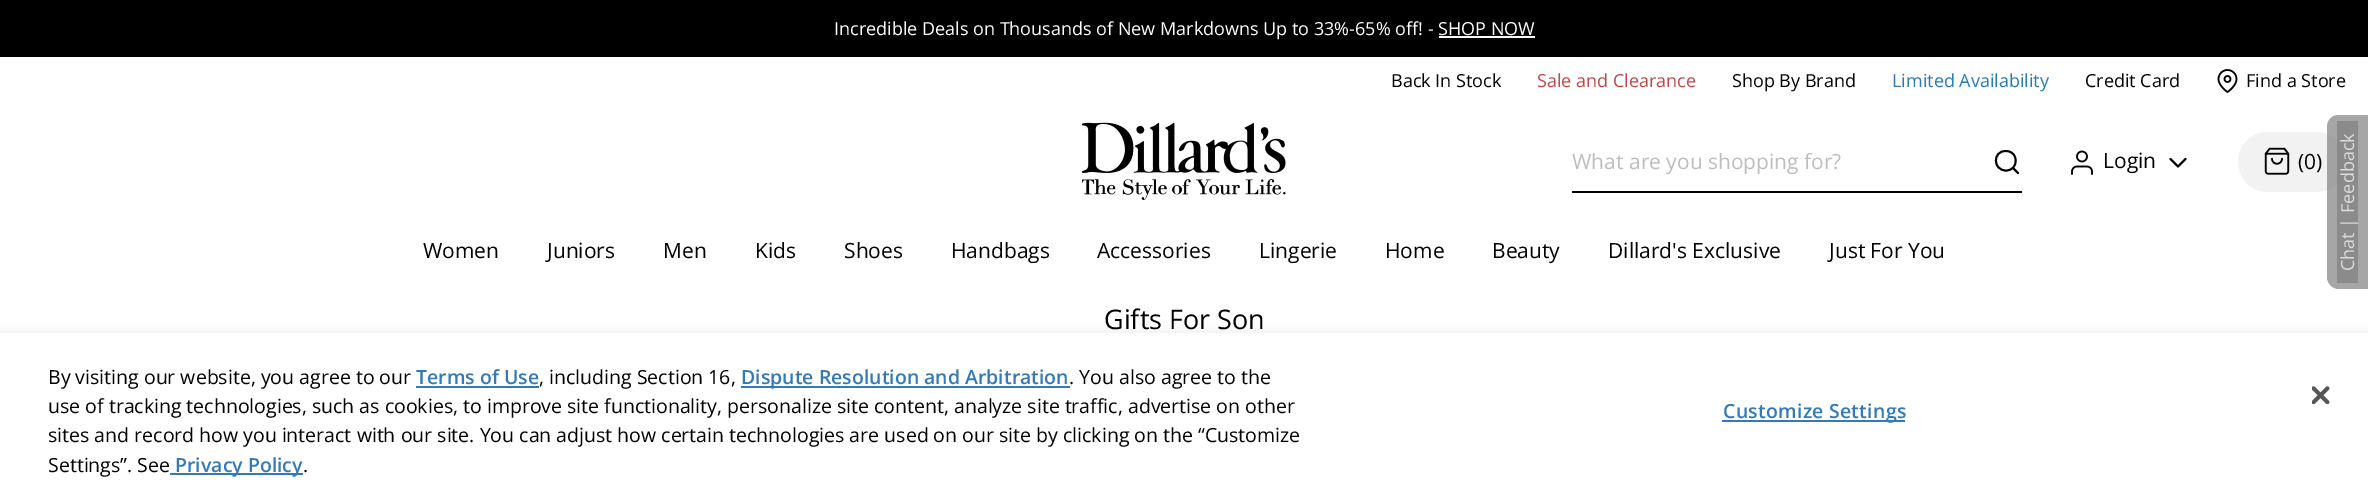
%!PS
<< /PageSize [2368 494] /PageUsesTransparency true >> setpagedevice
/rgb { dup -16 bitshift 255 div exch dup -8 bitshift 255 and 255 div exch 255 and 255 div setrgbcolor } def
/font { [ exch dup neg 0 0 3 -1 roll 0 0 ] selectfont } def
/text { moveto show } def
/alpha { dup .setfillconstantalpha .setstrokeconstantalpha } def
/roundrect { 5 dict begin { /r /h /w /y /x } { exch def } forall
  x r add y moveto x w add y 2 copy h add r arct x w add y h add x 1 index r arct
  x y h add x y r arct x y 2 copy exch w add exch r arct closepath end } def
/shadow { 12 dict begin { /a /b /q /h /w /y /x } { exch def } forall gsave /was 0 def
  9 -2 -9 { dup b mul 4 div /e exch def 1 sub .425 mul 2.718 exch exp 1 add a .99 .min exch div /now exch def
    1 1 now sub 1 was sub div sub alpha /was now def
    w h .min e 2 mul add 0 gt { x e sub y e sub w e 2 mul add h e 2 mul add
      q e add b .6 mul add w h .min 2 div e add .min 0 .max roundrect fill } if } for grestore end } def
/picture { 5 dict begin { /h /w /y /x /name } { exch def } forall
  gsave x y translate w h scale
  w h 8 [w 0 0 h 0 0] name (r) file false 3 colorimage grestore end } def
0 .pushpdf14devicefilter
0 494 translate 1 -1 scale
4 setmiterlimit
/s1 { /OpenSans-Regular 18 font 16#FFFFFF rgb } def
/s2 { /OpenSans-Regular 18 font 16#000000 rgb } def
/s3 { /OpenSans-Regular 18 font 16#C04747 rgb } def
/s4 { /OpenSans-Regular 18 font 16#267CB5 rgb } def
/s5 { /OpenSans-Regular 21 font 16#BDBDBD rgb } def
/s6 { /OpenSans-Regular 21 font 16#000000 rgb } def
/s7 { /OpenSans-Regular 27 font 16#000000 rgb } def
/s8 { /OpenSans-Regular 19.5 font 16#000000 rgb } def
/s9 { /OpenSans-SemiBold 19.5 font 16#337AB7 rgb } def
16#FFFFFF rgb
0 0 2368 494 rectfill
16#000000 rgb
0 0 2368 57 rectfill
s1
(Incredible Deals on Thousands of New Markdowns Up to 33%-65% off! - SHOP NOW) 834 35 text
1439 36 96 2 rectfill
s2
(Back In Stock) 1391 87 text
s3
(Sale and Clearance) 1537 87 text
s2
(Shop By Brand) 1732 87 text
s4
(Limited Availability) 1892 87 text
s2
(Credit Card) 2085 87 text
(pic1.raw) 2217 69 21 24 picture
(Find a Store) 2246 87 text
(pic2.raw) 1082 122 204 79 picture
1572 191 450 2 rectfill
s5
(What are you shopping for?) 1572 169 text
16#000000 rgb
1.9 setlinewidth
1 setlinecap
1 setlinejoin
2006 170.5 moveto 2019 170.5 2019 151 2006 151 curveto 1992.5 150.5 1992.5 170.5 2006 170.5 curveto closepath 2018 173 moveto 2013 168 lineto stroke
(pic3.raw) 2071 150 22 25 picture
(Login) 2103 168 text
2170.5 159 moveto 2178 166.5 lineto 2185.5 159 lineto stroke
16#F2F2F2 rgb
2238 132 108 60 30 roundrect fill
(pic4.raw) 2264 147 26 28 picture
s6
(\(0\)) 2298 169 text
(Women) 423 258 text
(Juniors) 547 258 text
(Men) 663 258 text
(Kids) 755 258 text
(Shoes) 844 258 text
(Handbags) 951 258 text
(Accessories) 1097 258 text
(Lingerie) 1259 258 text
(Home) 1385 258 text
(Beauty) 1492 258 text
(Dillard's Exclusive) 1608 258 text
(Just For You) 1829 258 text
s7
(Gifts For Son) 1104 329 text
0.7 alpha
16#808080 rgb
2327 277 moveto 2327 127 lineto 2327 120 2332 115 2339 115 curveto 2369 115 lineto 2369 289 lineto 2339 289 lineto 2332 289 2327 283 2327 277 curveto closepath fill
2337 121 21 162 rectfill
/OpenSans-Regular 18 font
1 alpha
16#DCDCDC rgb
gsave 2354 271 translate -90 rotate 0 0 moveto (Chat | Feedback) show grestore
16#000000 rgb
0 335 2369 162 0 6 0.12 shadow
16#FFFFFF rgb
0 333 2368 161 rectfill
s8
(By visiting our website, you agree to our) 48 384 text
s9
(Terms of Use) 416 384 text
416 386 123 2 rectfill
s8
(, including Section 16,) 539 384 text
16#337AB7 rgb
741 386 329 2 rectfill
s9
(Dispute Resolution and Arbitration) 741 384 text
s8
(. You also agree to the) 1069 384 text
(use of tracking technologies, such as cookies, to improve site functionality, personalize site content, analyze site traffic, advertise on other) 48 413 text
(sites and record how you interact with our site. You can adjust how certain technologies are used on our site by clicking on the “Customize) 48 442 text
(Settings”. See) 48 472 text
16#337AB7 rgb
170 473 133 2 rectfill
s9
(Privacy Policy) 175 472 text
s8
(.) 303 472 text
16#337AB7 rgb
1722 420 183 2 rectfill
/OpenSans-SemiBold 19.5 font
1723 418 moveto 0.25 0 (Customize Settings) ashow
(pic5.raw) 2312 386 18 18 picture
.poppdf14devicefilter showpage
